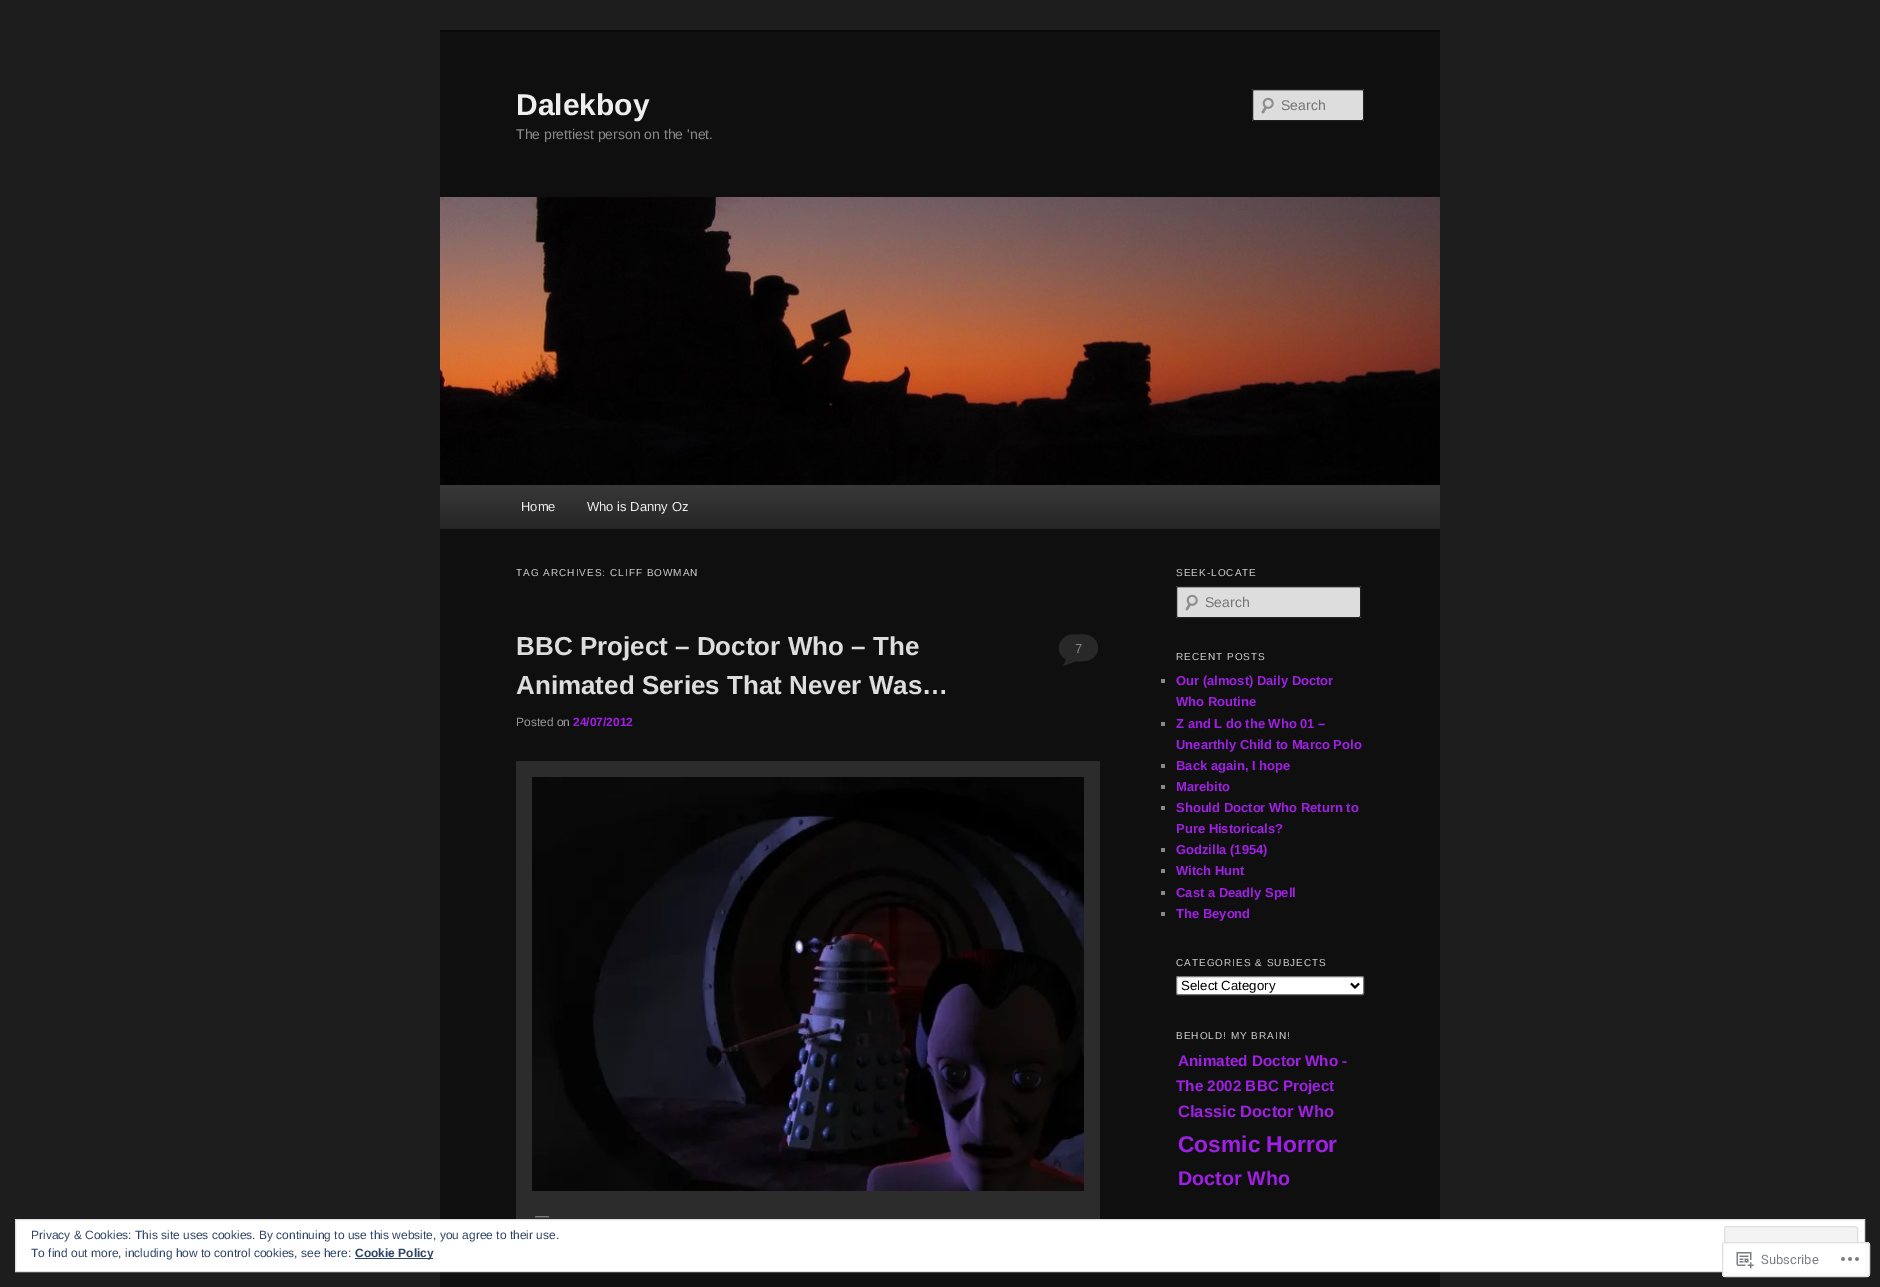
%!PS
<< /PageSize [1880 1287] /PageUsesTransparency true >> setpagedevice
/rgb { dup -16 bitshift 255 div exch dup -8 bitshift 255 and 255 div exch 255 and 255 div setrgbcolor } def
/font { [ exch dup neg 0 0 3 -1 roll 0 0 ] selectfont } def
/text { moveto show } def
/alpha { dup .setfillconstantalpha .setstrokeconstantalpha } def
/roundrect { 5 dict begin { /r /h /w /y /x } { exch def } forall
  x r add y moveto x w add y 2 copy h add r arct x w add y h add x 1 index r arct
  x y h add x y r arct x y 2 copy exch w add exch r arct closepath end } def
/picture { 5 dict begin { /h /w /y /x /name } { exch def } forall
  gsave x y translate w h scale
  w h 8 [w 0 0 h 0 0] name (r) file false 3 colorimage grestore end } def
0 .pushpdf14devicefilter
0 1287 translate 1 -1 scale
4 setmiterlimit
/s1 { /LiberationSans-Bold 30 font 16#EEEEEE rgb } def
/s2 { /LiberationSans-Regular 14 font 16#888888 rgb } def
/s3 { /LiberationSans-Regular 14 font 16#757575 rgb } def
/s4 { /LiberationSans-Regular 13 font 16#EEEEEE rgb } def
/s5 { /LiberationSans-Bold 26 font 16#DDDDDD rgb } def
/s6 { /LiberationSans-Regular 13 font 16#888888 rgb } def
/s7 { /LiberationSans-Regular 12 font 16#999999 rgb } def
/s8 { /LiberationSans-Bold 12 font 16#A01FE4 rgb } def
/s9 { /LiberationSerif-Bold 14 font 16#999999 rgb } def
/s10 { /LiberationSans-Bold 13 font 16#A01FE4 rgb } def
/s11 { /LiberationSans-Regular 13.25 font 16#000000 rgb } def
/s12 { /LiberationSans-Bold 15.25 font 16#A01FE4 rgb } def
/s13 { /LiberationSans-Bold 16.5 font 16#A01FE4 rgb } def
/s14 { /LiberationSans-Bold 22.75 font 16#A01FE4 rgb } def
/s15 { /LiberationSans-Bold 19.75 font 16#A01FE4 rgb } def
/s16 { /LiberationSans-Regular 12 font 16#2E4467 rgb } def
/s17 { /LiberationSans-Bold 12 font 16#2E4467 rgb } def
/s18 { /Roboto-Regular 13 font 16#7B7F84 rgb } def
16#1D1D1D rgb
0 0 1880 1287 rectfill
16#0F0F0F rgb
440 32 1000 1255 rectfill
16#0A0A0A rgb
440 30 1000 2 rectfill
s1
(Dalekboy) 516 115 text
s2
(The prettiest person on the 'net.) 516 139 text
16#DDDDDD rgb
1252 89 112 32 2 roundrect fill
(pic1.raw) 1261 97 13 17 picture
0.1 alpha
16#000000 rgb
1254 91 moveto 1363 91 lineto 1363 92 lineto 1362 90 lineto 1272 90 lineto 1268 90 1253 85 1253 92 curveto 1253 91 1253 91 1254 91 curveto closepath fill
1 alpha
16#222222 rgb
1252.5 89.5 111 31 1.5 roundrect stroke
s3
(Search) 1281 110 text
(pic2.raw) 440 197 1000 288 picture
gsave 440 485 moveto 1440 485 lineto 1440 528 lineto 440 528 lineto closepath clip newpath
<< /ShadingType 2 /ColorSpace /DeviceRGB /Coords [940 485 940 528] /Extend [true true] /Function << /FunctionType 2 /Domain [0 1] /C0 [0.22 0.22 0.22] /C1 [0.153 0.153 0.153] /N 1 >> >> shfill grestore
16#222222 rgb
440 528 1000 1 rectfill
s4
(Home) 521 511 text
(Who is Danny Oz) 587 511 text
/LiberationSans-Regular 10 font
16#CCCCCC rgb
516 576 moveto 1 0 (TAG ARCHIVES: CLIFF BOWMAN) ashow
s5
(BBC Project – Doctor Who – The) 516 655 text
(Animated Series That Never Was…) 516 694 text
16#282828 rgb
1058 633 41 34 rectfill
(pic3.raw) 1057 631 43 36 picture
s6
(7) 1075 653 text
s7
(Posted on) 516 726 text
s8
(24/07/2012) 573 726 text
16#2C2C2C rgb
516 761 584 458 rectfill
(pic4.raw) 532 777 552 414 picture
s9
(—) 535 1220 text
/LiberationSans-Regular 10 font
16#CCCCCC rgb
1176 576 moveto 1 0 (SEEK-LOCATE) ashow
16#DDDDDD rgb
1176 586 185 32 2 roundrect fill
(pic1.raw) 1185 594 13 17 picture
16#C7C7C7 rgb
1178 588 moveto 1360 588 lineto 1360 589 lineto 1360 588 1360 587 1359 587 curveto 1177 587 lineto 1177 589 lineto 1177 588 1177 588 1178 588 curveto closepath fill
16#222222 rgb
1176.5 586.5 184 31 1.5 roundrect stroke
s3
(Search) 1205 607 text
/LiberationSans-Regular 10 font
16#CCCCCC rgb
1176 660 moveto 1 0 (RECENT POSTS) ashow
16#888888 rgb
1161 679 4 4 rectfill
s10
(Our \(almost\) Daily Doctor) 1176 685 text
(Who Routine) 1176 706 text
16#888888 rgb
1161 722 4 4 rectfill
s10
(Z and L do the Who 01 –) 1176 728 text
(Unearthly Child to Marco Polo) 1176 749 text
16#888888 rgb
1161 764 4 4 rectfill
s10
(Back again, I hope) 1176 770 text
16#888888 rgb
1161 785 4 4 rectfill
s10
(Marebito) 1176 791 text
16#888888 rgb
1161 806 4 4 rectfill
s10
(Should Doctor Who Return to) 1176 812 text
(Pure Historicals?) 1176 833 text
16#888888 rgb
1161 848 4 4 rectfill
s10
(Godzilla \(1954\)) 1176 854 text
16#888888 rgb
1161 869 4 4 rectfill
s10
(Witch Hunt) 1176 875 text
16#888888 rgb
1161 891 4 4 rectfill
s10
(Cast a Deadly Spell) 1176 897 text
16#888888 rgb
1161 912 4 4 rectfill
s10
(The Beyond) 1176 918 text
/LiberationSans-Regular 10 font
16#CCCCCC rgb
1176 966 moveto 1 0 (CATEGORIES & SUBJECTS) ashow
16#FFFFFF rgb
1176.5 976.5 187 18 1.5 roundrect gsave fill grestore
16#767676 rgb
stroke
16#000000 rgb
2 setlinewidth
1351 983.5 moveto 1355 987.5 lineto 1359 983.5 lineto stroke
s11
(Select Category) 1181 990 text
/LiberationSans-Regular 10 font
16#CCCCCC rgb
1176 1039 moveto 1 0 (BEHOLD! MY BRAIN!) ashow
s12
(Animated Doctor Who -) 1178 1066 text
(The 2002 BBC Project) 1176 1091 text
s13
(Classic Doctor Who) 1178 1117 text
s14
(Cosmic Horror) 1178 1152 text
s15
(Doctor Who) 1178 1185 text
16#FFFFFF rgb
15.5 1219.5 moveto 1864.5 1219.5 lineto 1864.5 1271.5 lineto 15.5 1271.5 lineto closepath gsave fill grestore
16#DEDEDE rgb
1 setlinewidth
stroke
s16
(Privacy & Cookies: This site uses cookies. By continuing to use this website, you agree to their use.) 31 1239 text
16#F3F3F3 rgb
1724.5 1226.5 133 38 2.5 roundrect gsave fill grestore
16#DEDEDE rgb
stroke
s16
(To find out more, including how to control cookies, see here:) 31 1257 text
355 1258 78 1 rectfill
s17
(Cookie Policy) 355 1257 text
0.98 alpha
16#FFFFFF rgb
1722 1242 148 35 3 roundrect fill
16#DCDCDE rgb
1722.5 1242.5 147 34 2.5 roundrect stroke
1 alpha
(pic5.raw) 1736 1252 18 17 picture
s18
(Subscribe) 1761 1264 text
(pic6.raw) 1841 1257 18 4 picture
.poppdf14devicefilter showpage
